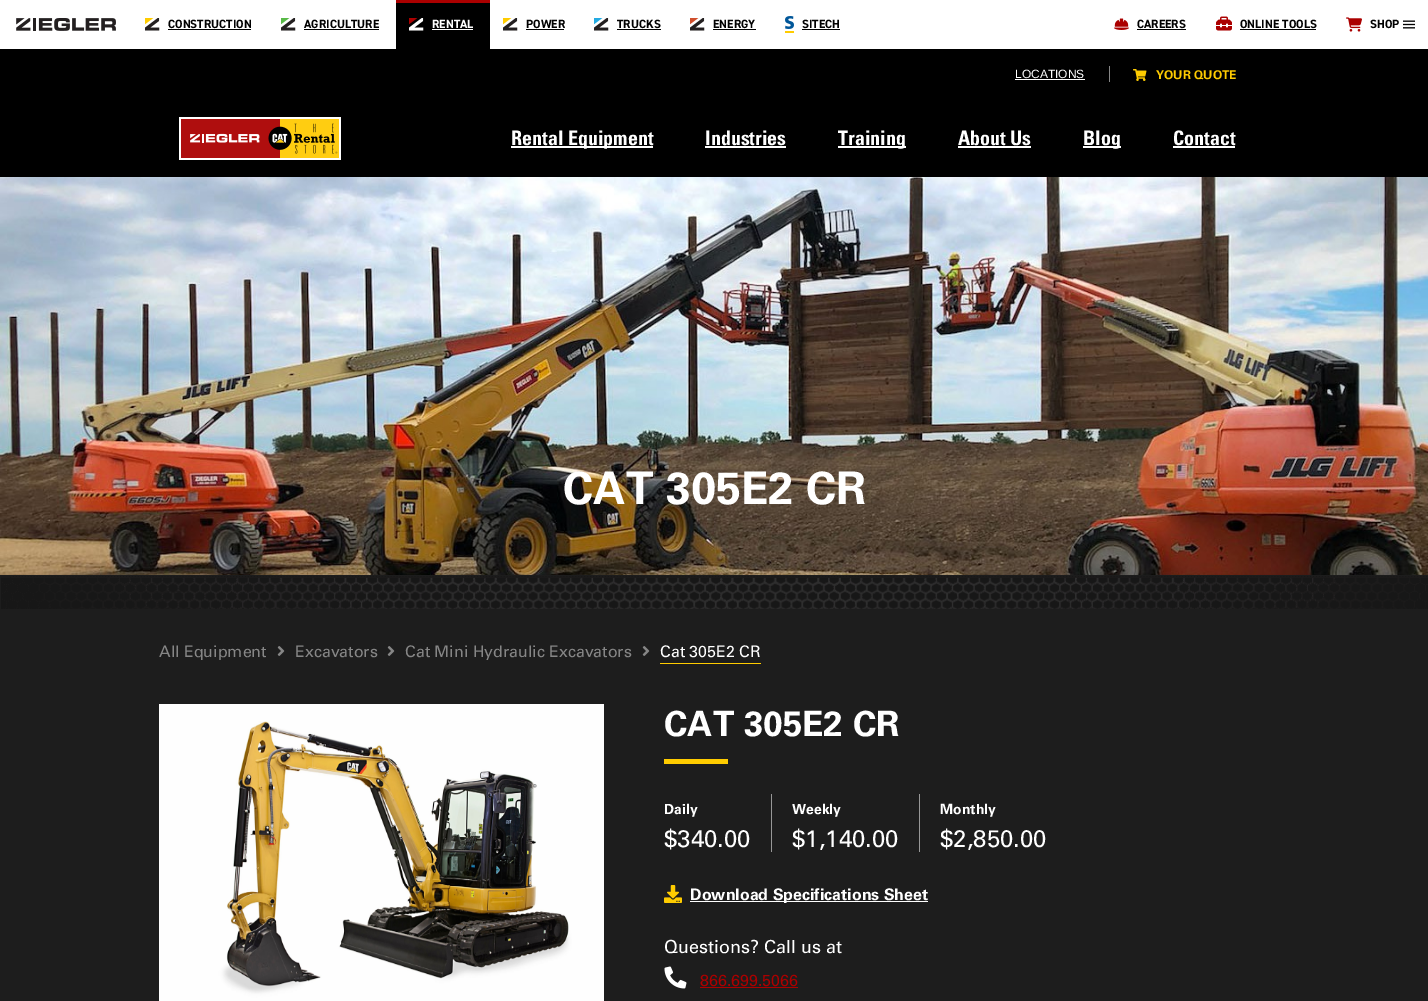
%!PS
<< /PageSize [1428 1001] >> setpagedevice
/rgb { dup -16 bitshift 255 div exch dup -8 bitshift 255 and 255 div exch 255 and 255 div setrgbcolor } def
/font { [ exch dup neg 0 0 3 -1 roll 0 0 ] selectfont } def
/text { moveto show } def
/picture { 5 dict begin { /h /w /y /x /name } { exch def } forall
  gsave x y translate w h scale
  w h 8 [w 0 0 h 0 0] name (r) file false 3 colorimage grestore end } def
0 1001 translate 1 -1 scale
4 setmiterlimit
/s1 { /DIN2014-Bold 12 font 16#000000 rgb } def
/s2 { /DIN2014-Bold 12 font 16#FFFFFF rgb } def
/s3 { /LiberationSans-Regular 12 font 16#FFFFFF rgb } def
/s4 { /Univers-Bold 12 font 16#FFCC00 rgb } def
/s5 { /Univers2-Bold 20 font 16#FFFFFF rgb } def
/s6 { /Univers-Bold 45 font 16#FFFFFF rgb } def
/s7 { /Univers-Regular 16 font 16#868686 rgb } def
/s8 { /Univers-Regular 16 font 16#FFFFFF rgb } def
/s9 { /Univers-Bold 35 font 16#FFFFFF rgb } def
/s10 { /Univers-Bold 14 font 16#FFFFFF rgb } def
/s11 { /Univers-Regular 24 font 16#FFFFFF rgb } def
/s12 { /Univers-Bold 16 font 16#FFFFFF rgb } def
/s13 { /Univers-Regular 18 font 16#FFFFFF rgb } def
/s14 { /Univers-Regular 16 font 16#AB0000 rgb } def
16#1D1D1D rgb
0 0 1428 1001 rectfill
16#FFFFFF rgb
0 0 1428 49 rectfill
(pic1.raw) 16 18 100 13 picture
(pic2.raw) 145 18 15 13 picture
s1
(CONSTRUCTION) 168 28 text
168 29 83 1 rectfill
(pic3.raw) 281 18 15 13 picture
(AGRICULTURE) 304 28 text
304 29 75 1 rectfill
396 3 94 46 rectfill
16#AB0000 rgb
396 0 94 3 rectfill
(pic4.raw) 409 18 15 13 picture
s2
(RENTAL) 432 28 text
432 29 41 1 rectfill
(pic2.raw) 503 18 15 13 picture
s1
(POWER) 526 28 text
526 29 38 1 rectfill
(pic5.raw) 594 18 15 13 picture
(TRUCKS) 617 28 text
617 29 44 1 rectfill
(pic6.raw) 690 18 15 13 picture
(ENERGY) 713 28 text
713 29 43 1 rectfill
(pic7.raw) 785 16 9 17 picture
(SITECH) 802 28 text
802 29 38 1 rectfill
(pic8.raw) 1114 18 15 12 picture
(CAREERS) 1137 28 text
1137 29 49 1 rectfill
(pic9.raw) 1216 16 16 15 picture
(ONLINE TOOLS) 1240 28 text
1240 29 76 1 rectfill
(pic10.raw) 1346 17 16 15 picture
(SHOP) 1370 28 text
(pic11.raw) 1403 20 12 9 picture
0 49 1428 128 rectfill
s3
(LOCATIONS) 1015 78 text
1015 79 70 1 rectfill
16#868686 rgb
1109 66 1 16 rectfill
(pic12.raw) 1133 69 14 12 picture
s4
(YOUR QUOTE) 1156 79 text
(pic13.raw) 179 117 162 43 picture
16#FFFFFF rgb
511 146 142 2 rectfill
s5
(Rental Equipment) 511 145 text
(Industries) 705 145 text
705 146 81 2 rectfill
838 146 68 2 rectfill
(Training) 838 145 text
(About Us) 958 145 text
958 146 73 2 rectfill
1083 146 38 2 rectfill
(Blog) 1083 145 text
(Contact) 1173 145 text
1173 146 62 2 rectfill
(pic14.raw) 0 177 1428 398 picture
s6
(CAT 305E2 CR) 563 504 text
(pic15.raw) 1 574 1427 35 picture
s7
(All Equipment) 159 657 text
(pic16.raw) 277 646 8 10 picture
(Excavators) 295 657 text
(pic16.raw) 387 646 8 10 picture
(Cat Mini Hydraulic Excavators) 405 657 text
(pic16.raw) 642 646 8 10 picture
16#FFCC00 rgb
660 663 101 1 rectfill
s8
(Cat 305E2 CR) 660 657 text
(pic17.raw) 159 704 445 297 picture
s9
(CAT 305E2 CR) 664 736 text
16#FFCC00 rgb
664 759 64 5 rectfill
16#979797 rgb
771 794 1 58 rectfill
s10
(Daily) 664 814 text
s11
($340.00) 664 847 text
16#979797 rgb
919 794 1 58 rectfill
s10
(Weekly) 792 814 text
s11
($1,140.00) 792 847 text
s10
(Monthly) 940 814 text
s11
($2,850.00) 940 847 text
(pic18.raw) 664 885 18 18 picture
690 901 238 1 rectfill
s12
(Download Specifications Sheet) 690 900 text
s13
(Questions? Call us at) 664 953 text
(pic19.raw) 664 966 23 23 picture
s14
(866.699.5066) 700 986 text
700 987 98 1 rectfill
showpage
